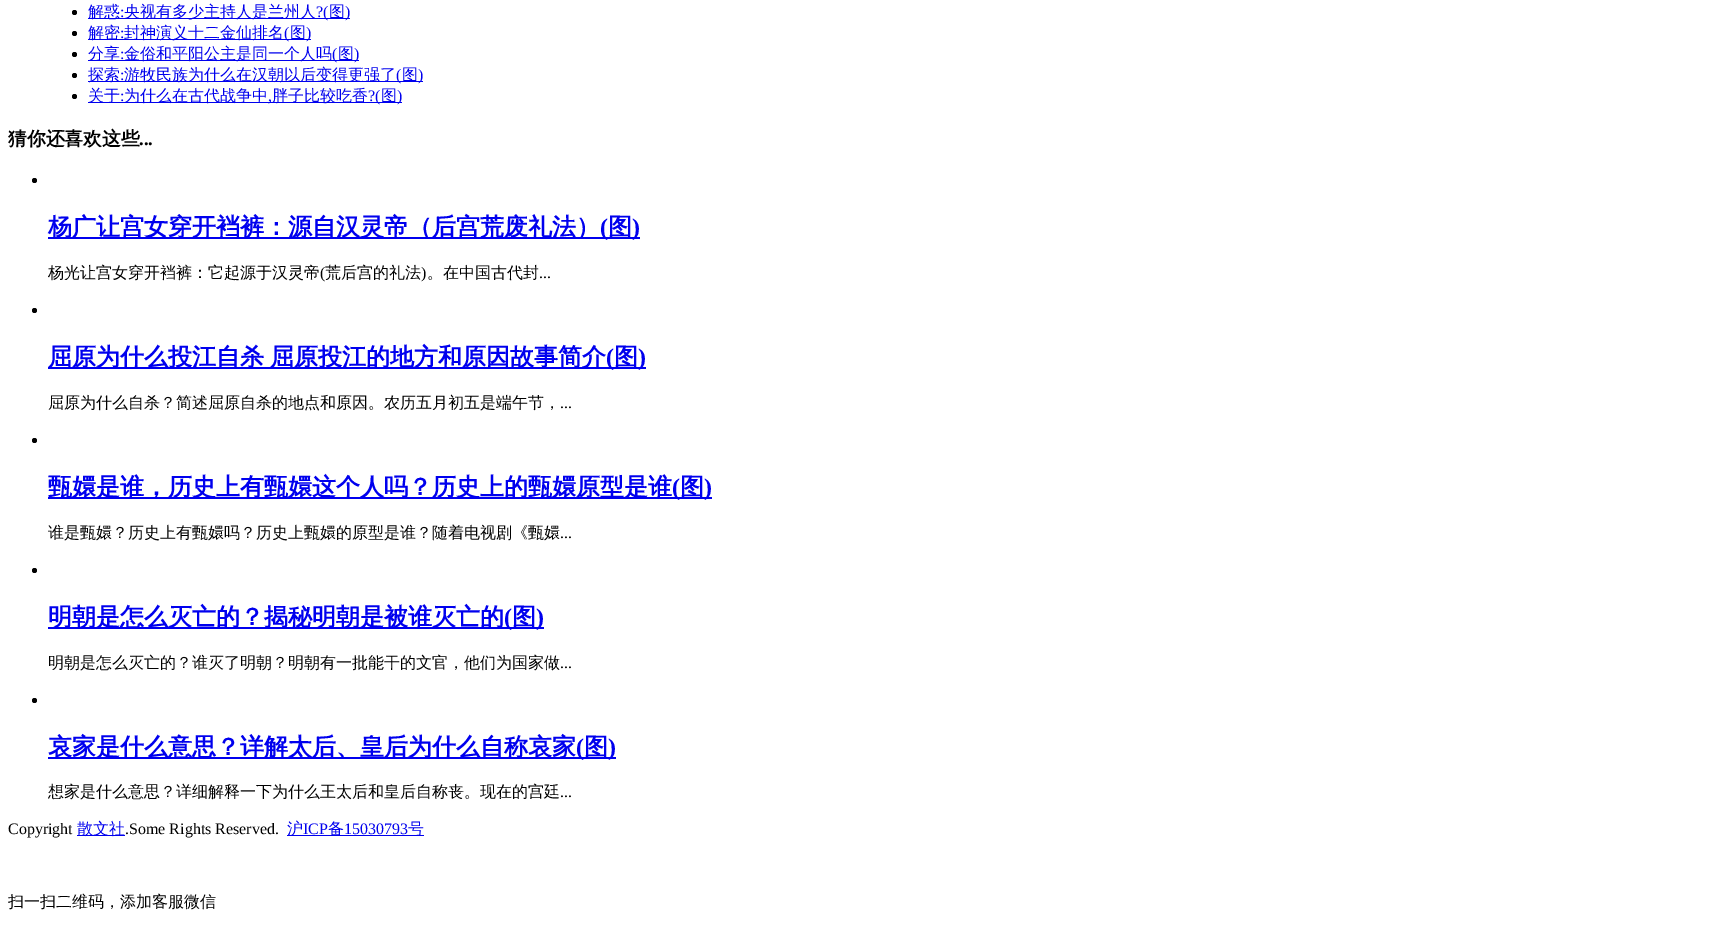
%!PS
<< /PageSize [1721 925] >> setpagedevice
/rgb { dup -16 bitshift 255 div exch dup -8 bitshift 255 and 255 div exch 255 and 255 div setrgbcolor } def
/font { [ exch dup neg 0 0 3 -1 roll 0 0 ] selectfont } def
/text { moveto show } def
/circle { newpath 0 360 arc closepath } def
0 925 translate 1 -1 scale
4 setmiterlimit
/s1 { /WenQuanYiZenHei-Medium 16 font 16#0000EE rgb } def
/s2 { /LiberationSerif-Regular 16 font 16#0000EE rgb } def
/s3 { /WenQuanYiZenHei-Bold 18.75 font 16#000000 rgb } def
/s4 { /LiberationSerif-Bold 18.75 font 16#000000 rgb } def
/s5 { /WenQuanYiZenHei-Bold 24 font 16#0000EE rgb } def
/s6 { /LiberationSerif-Bold 24 font 16#0000EE rgb } def
/s7 { /WenQuanYiZenHei-Medium 16 font 16#000000 rgb } def
/s8 { /LiberationSerif-Regular 16 font 16#000000 rgb } def
16#FFFFFF rgb
0 0 1721 925 rectfill
16#000000 rgb
74.5 12.5 2.5 circle fill
16#0000EE rgb
88 18 262 1 rectfill
s1
(解惑) 88 17 text
s2
(:) 120 17 text
s1
(央视有多少主持人是兰州人) 124 17 text
s2
(?\() 316 17 text
s1
(图) 329 17 text
s2
(\)) 345 17 text
16#000000 rgb
74.5 33.5 2.5 circle fill
16#0000EE rgb
88 39 223 1 rectfill
s1
(解密) 88 38 text
s2
(:) 120 38 text
s1
(封神演义十二金仙排名) 124 38 text
s2
(\() 284 38 text
s1
(图) 290 38 text
s2
(\)) 306 38 text
16#000000 rgb
74.5 54.5 2.5 circle fill
16#0000EE rgb
88 60 271 1 rectfill
s1
(分享) 88 59 text
s2
(:) 120 59 text
s1
(金俗和平阳公主是同一个人吗) 124 59 text
s2
(\() 332 59 text
s1
(图) 338 59 text
s2
(\)) 354 59 text
16#000000 rgb
74.5 75.5 2.5 circle fill
16#0000EE rgb
88 81 335 1 rectfill
s1
(探索) 88 80 text
s2
(:) 120 80 text
s1
(游牧民族为什么在汉朝以后变得更强了) 124 80 text
s2
(\() 396 80 text
s1
(图) 402 80 text
s2
(\)) 418 80 text
16#000000 rgb
74.5 96.5 2.5 circle fill
16#0000EE rgb
88 102 314 1 rectfill
s1
(关于) 88 101 text
s2
(:) 120 101 text
s1
(为什么在古代战争中) 124 101 text
(胖子比较吃香) 272 101 text
s2
(?\() 368 101 text
s1
(图) 381 101 text
s2
(\)) 397 101 text
(,) 268 101 text
s3
(猜你还喜欢这些) 8 145 text
s4
(...) 139 145 text
34.5 180.5 2.5 circle fill
16#0000EE rgb
48 237 592 2 rectfill
s5
(杨广让宫女穿开裆裤：源自汉灵帝（后宫荒废礼法）) 48 235 text
s6
(\() 600 235 text
s5
(图) 608 235 text
s6
(\)) 632 235 text
s7
(杨光让宫女穿开裆裤：它起源于汉灵帝) 48 278 text
s8
(\() 320 278 text
s7
(荒后宫的礼法) 325 278 text
s8
(\)) 421 278 text
s7
(。在中国古代封) 427 278 text
s8
(...) 539 278 text
34.5 310.5 2.5 circle fill
16#0000EE rgb
48 367 598 2 rectfill
/WenQuanYiZenHei-Bold 24 font
48 365 moveto -1 0 32 (屈原为什么投江自杀 屈原投江的地方和原因故事简介) widthshow
s6
(\() 606 365 text
s5
(图) 614 365 text
s6
(\)) 638 365 text
s7
(屈原为什么自杀？简述屈原自杀的地点和原因。农历五月初五是端午节，) 48 408 text
s8
(...) 560 408 text
34.5 440.5 2.5 circle fill
16#0000EE rgb
48 497 664 2 rectfill
s5
(甄嬛是谁，历史上有甄嬛这个人吗？历史上的甄嬛原型是谁) 48 495 text
s6
(\() 672 495 text
s5
(图) 680 495 text
s6
(\)) 704 495 text
s7
(谁是甄嬛？历史上有甄嬛吗？历史上甄嬛的原型是谁？随着电视剧《甄嬛) 48 538 text
s8
(...) 560 538 text
34.5 570.5 2.5 circle fill
16#0000EE rgb
48 627 496 2 rectfill
s5
(明朝是怎么灭亡的？揭秘明朝是被谁灭亡的) 48 625 text
s6
(\() 504 625 text
s5
(图) 512 625 text
s6
(\)) 536 625 text
s7
(明朝是怎么灭亡的？谁灭了明朝？明朝有一批能干的文官，他们为国家做) 48 668 text
s8
(...) 560 668 text
34.5 700.5 2.5 circle fill
16#0000EE rgb
48 757 568 2 rectfill
s5
(哀家是什么意思？详解太后、皇后为什么自称哀家) 48 755 text
s6
(\() 576 755 text
s5
(图) 584 755 text
s6
(\)) 608 755 text
s7
(想家是什么意思？详细解释一下为什么王太后和皇后自称丧。现在的宫廷) 48 797 text
s8
(...) 560 797 text
(Copyright) 8 834 text
16#0000EE rgb
77 835 48 1 rectfill
s1
(散文社) 77 834 text
s8
(.Some Rights Reserved.) 125 834 text
16#0000EE rgb
287 835 137 1 rectfill
s1
(沪) 287 834 text
s2
(ICP) 303 834 text
s1
(备) 328 834 text
s2
(15030793) 344 834 text
s1
(号) 408 834 text
s7
(扫一扫二维码，添加客服微信) 8 907 text
showpage
